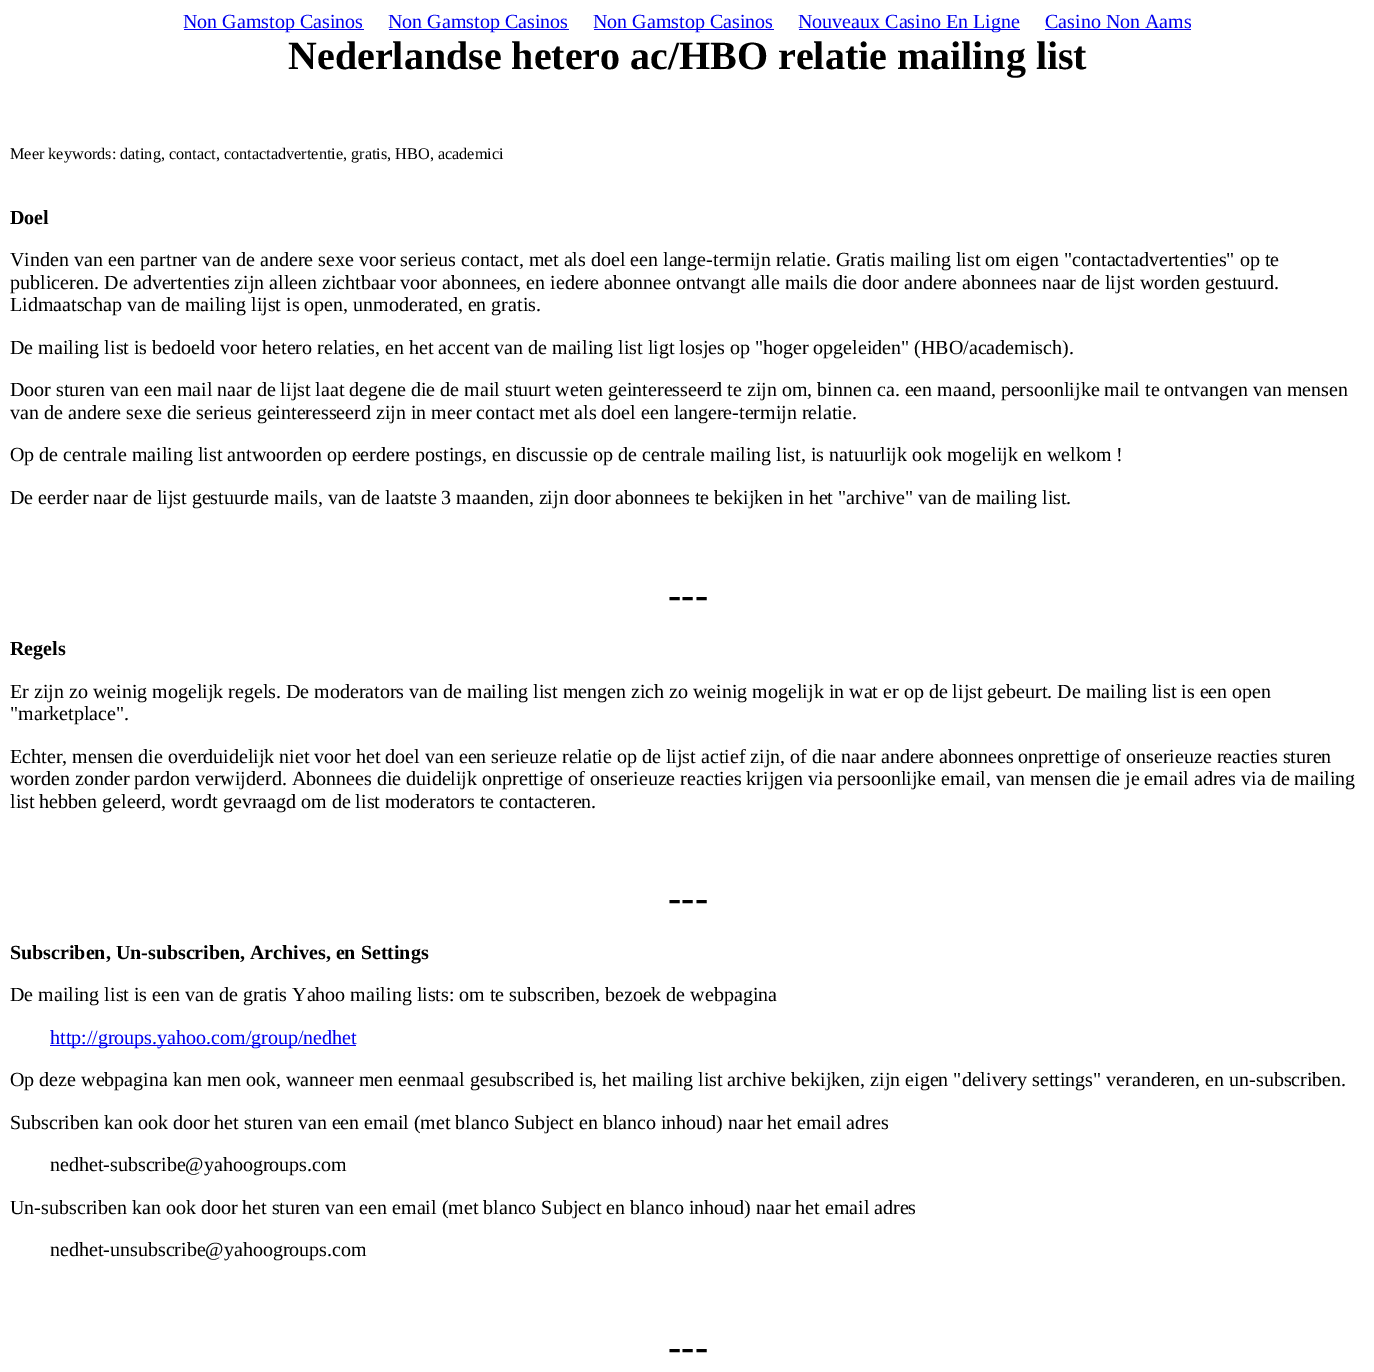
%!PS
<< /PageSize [1374 1372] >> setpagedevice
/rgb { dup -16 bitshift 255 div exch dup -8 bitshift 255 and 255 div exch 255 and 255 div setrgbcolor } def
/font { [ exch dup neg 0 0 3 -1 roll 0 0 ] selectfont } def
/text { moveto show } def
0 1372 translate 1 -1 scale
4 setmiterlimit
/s1 { /LiberationSerif-Regular 20 font 16#0000EE rgb } def
/s2 { /LiberationSerif-Bold 40 font 16#000000 rgb } def
/s3 { /LiberationSerif-Regular 16.25 font 16#000000 rgb } def
/s4 { /LiberationSerif-Bold 20 font 16#000000 rgb } def
/s5 { /LiberationSerif-Regular 20 font 16#000000 rgb } def
16#FFFFFF rgb
0 0 1374 1372 rectfill
16#0000EE rgb
184 29 180 1 rectfill
s1
(Non Gamstop Casinos) 183 28 text
389 29 180 1 rectfill
(Non Gamstop Casinos) 388 28 text
594 29 180 1 rectfill
(Non Gamstop Casinos) 593 28 text
799 29 221 1 rectfill
(Nouveaux Casino En Ligne) 798 28 text
(Casino Non Aams) 1045 28 text
1045 29 146 1 rectfill
s2
(Nederlandse hetero ac/HBO relatie mailing list) 288 69 text
s3
(Meer keywords: dating, contact, contactadvertentie, gratis, HBO, academici) 10 159 text
s4
(Doel) 10 224 text
s5
(Vinden van een partner van de andere sexe voor serieus contact, met als doel een lange-termijn relatie. Gratis mailing list om eigen "contactadvertenties" op te) 10 266 text
(publiceren. De advertenties zijn alleen zichtbaar voor abonnees, en iedere abonnee ontvangt alle mails die door andere abonnees naar de lijst worden gestuurd.) 10 289 text
(Lidmaatschap van de mailing lijst is open, unmoderated, en gratis.) 10 311 text
(De mailing list is bedoeld voor hetero relaties, en het accent van de mailing list ligt losjes op "hoger opgeleiden" \(HBO/academisch\).) 10 354 text
(Door sturen van een mail naar de lijst laat degene die de mail stuurt weten geinteresseerd te zijn om, binnen ca. een maand, persoonlijke mail te ontvangen van mensen) 10 396 text
(van de andere sexe die serieus geinteresseerd zijn in meer contact met als doel een langere-termijn relatie.) 10 419 text
(Op de centrale mailing list antwoorden op eerdere postings, en discussie op de centrale mailing list, is natuurlijk ook mogelijk en welkom !) 10 461 text
(De eerder naar de lijst gestuurde mails, van de laatste 3 maanden, zijn door abonnees te bekijken in het "archive" van de mailing list.) 10 504 text
s2
(---) 668 608 text
s4
(Regels) 10 655 text
s5
(Er zijn zo weinig mogelijk regels. De moderators van de mailing list mengen zich zo weinig mogelijk in wat er op de lijst gebeurt. De mailing list is een open) 10 698 text
("marketplace".) 10 720 text
(Echter, mensen die overduidelijk niet voor het doel van een serieuze relatie op de lijst actief zijn, of die naar andere abonnees onprettige of onserieuze reacties sturen) 10 763 text
(worden zonder pardon verwijderd. Abonnees die duidelijk onprettige of onserieuze reacties krijgen via persoonlijke email, van mensen die je email adres via de mailing) 10 785 text
(list hebben geleerd, wordt gevraagd om de list moderators te contacteren.) 10 808 text
s2
(---) 668 911 text
s4
(Subscriben, Un-subscriben, Archives, en Settings) 10 959 text
s5
(De mailing list is een van de gratis Yahoo mailing lists: om te subscriben, bezoek de webpagina) 10 1001 text
16#0000EE rgb
50 1045 306 1 rectfill
(http://groups.yahoo.com/group/nedhet) 50 1044 text
s5
(Op deze webpagina kan men ook, wanneer men eenmaal gesubscribed is, het mailing list archive bekijken, zijn eigen "delivery settings" veranderen, en un-subscriben.) 10 1086 text
(Subscriben kan ook door het sturen van een email \(met blanco Subject en blanco inhoud\) naar het email adres) 10 1129 text
(nedhet-subscribe@yahoogroups.com) 50 1171 text
(Un-subscriben kan ook door het sturen van een email \(met blanco Subject en blanco inhoud\) naar het email adres) 10 1214 text
(nedhet-unsubscribe@yahoogroups.com) 50 1256 text
s2
(---) 668 1360 text
showpage
